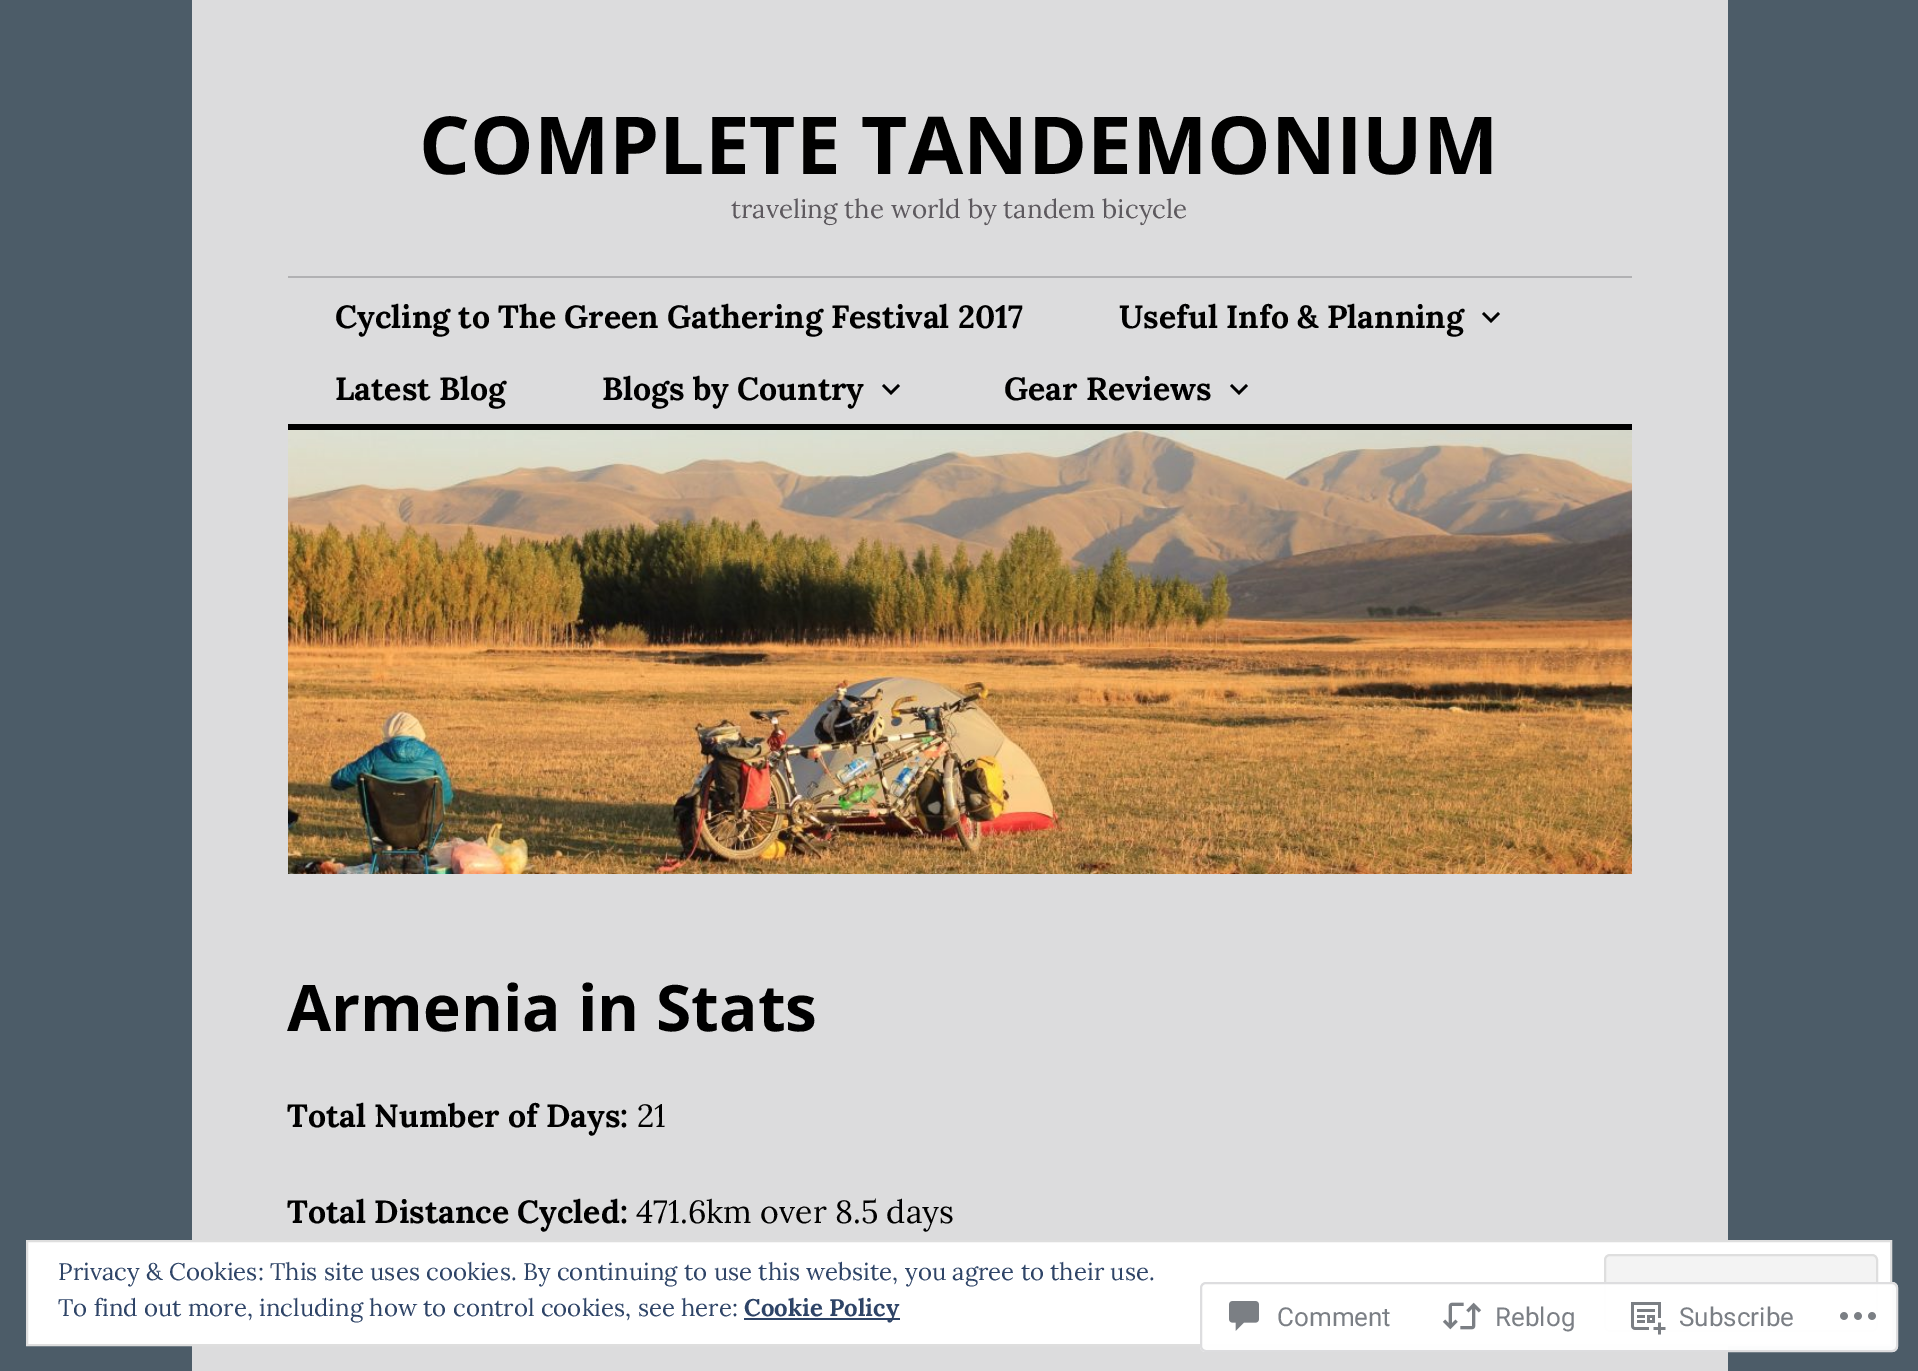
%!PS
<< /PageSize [1918 1371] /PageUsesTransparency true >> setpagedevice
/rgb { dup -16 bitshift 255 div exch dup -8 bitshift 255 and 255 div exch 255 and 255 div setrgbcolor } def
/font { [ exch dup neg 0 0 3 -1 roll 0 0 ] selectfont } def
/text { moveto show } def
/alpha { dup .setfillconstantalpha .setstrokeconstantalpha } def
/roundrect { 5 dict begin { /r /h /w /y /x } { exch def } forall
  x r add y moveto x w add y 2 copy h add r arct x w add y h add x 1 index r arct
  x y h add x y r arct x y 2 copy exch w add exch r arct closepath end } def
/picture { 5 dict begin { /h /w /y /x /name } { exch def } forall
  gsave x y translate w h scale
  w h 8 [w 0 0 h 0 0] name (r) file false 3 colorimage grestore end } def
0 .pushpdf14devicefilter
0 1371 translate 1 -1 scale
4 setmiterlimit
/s1 { /OpenSans-Bold 80 font 16#000000 rgb } def
/s2 { /Lora-Regular 26 font 16#5D595E rgb } def
/s3 { /Lora-Bold 32 font 16#000000 rgb } def
/s4 { /OpenSans-Bold 64 font 16#000000 rgb } def
/s5 { /Lora-Regular 32 font 16#000000 rgb } def
/s6 { /Lora-Regular 24 font 16#2E4467 rgb } def
/s7 { /Lora-Bold 24 font 16#2E4467 rgb } def
/s8 { /Roboto-Regular 26 font 16#7B7F85 rgb } def
16#4C5C68 rgb
0 0 1918 1371 rectfill
16#DCDCDD rgb
192 0 1536 1371 rectfill
s1
(COMPLETE TANDEMONIUM) 419 174 text
s2
(traveling the world by tandem bicycle) 731 218 text
16#B1B1B3 rgb
288 276 1344 2 rectfill
16#000000 rgb
288 424 1344 6 rectfill
s3
(Cycling to The Green Gathering Festival 2017) 335 328 text
(Useful Info & Planning) 1119 328 text
1498 312 moveto 1500 314 lineto 1491 323 lineto 1482 314 lineto 1484 312 lineto 1491 319 lineto closepath fill
(Latest Blog) 335 400 text
(Blogs by Country) 602 400 text
898 384 moveto 900 386 lineto 891 395 lineto 882 386 lineto 884 384 lineto 891 391 lineto closepath fill
(Gear Reviews) 1004 400 text
1246 384 moveto 1248 386 lineto 1239 395 lineto 1230 386 lineto 1232 384 lineto 1239 391 lineto closepath fill
(pic1.raw) 288 430 1344 444 picture
s4
(Armenia in Stats) 287 1031 text
s3
(Total Number of Days:) 287 1127 text
s5
(21) 637 1127 text
s3
(Total Distance Cycled:) 287 1223 text
s5
(471.6km over 8.5 days) 636 1223 text
16#FFFFFF rgb
27 1241 moveto 1891 1241 lineto 1891 1345 lineto 27 1345 lineto closepath gsave fill grestore
16#DEDEDE rgb
2 setlinewidth
stroke
s6
(Privacy & Cookies: This site uses cookies. By continuing to use this website, you agree to their use.) 58 1280 text
16#F3F3F3 rgb
1605 1255 272 76 5 roundrect gsave fill grestore
16#DEDEDE rgb
stroke
s6
(To find out more, including how to control cookies, see here:) 58 1316 text
744 1318 156 2 rectfill
s7
(Cookie Policy) 744 1316 text
0.98 alpha
16#FFFFFF rgb
1200 1282 698 70 6 roundrect fill
16#DCDCDE rgb
1201 1283 696 68 5 roundrect stroke
1 alpha
(pic2.raw) 1229 1301 30 30 picture
s8
(Comment) 1277 1326 text
(pic3.raw) 1442 1302 40 28 picture
(Reblog) 1495 1326 text
(pic4.raw) 1631 1302 35 33 picture
(Subscribe) 1679 1326 text
(pic5.raw) 1840 1312 36 8 picture
.poppdf14devicefilter showpage
